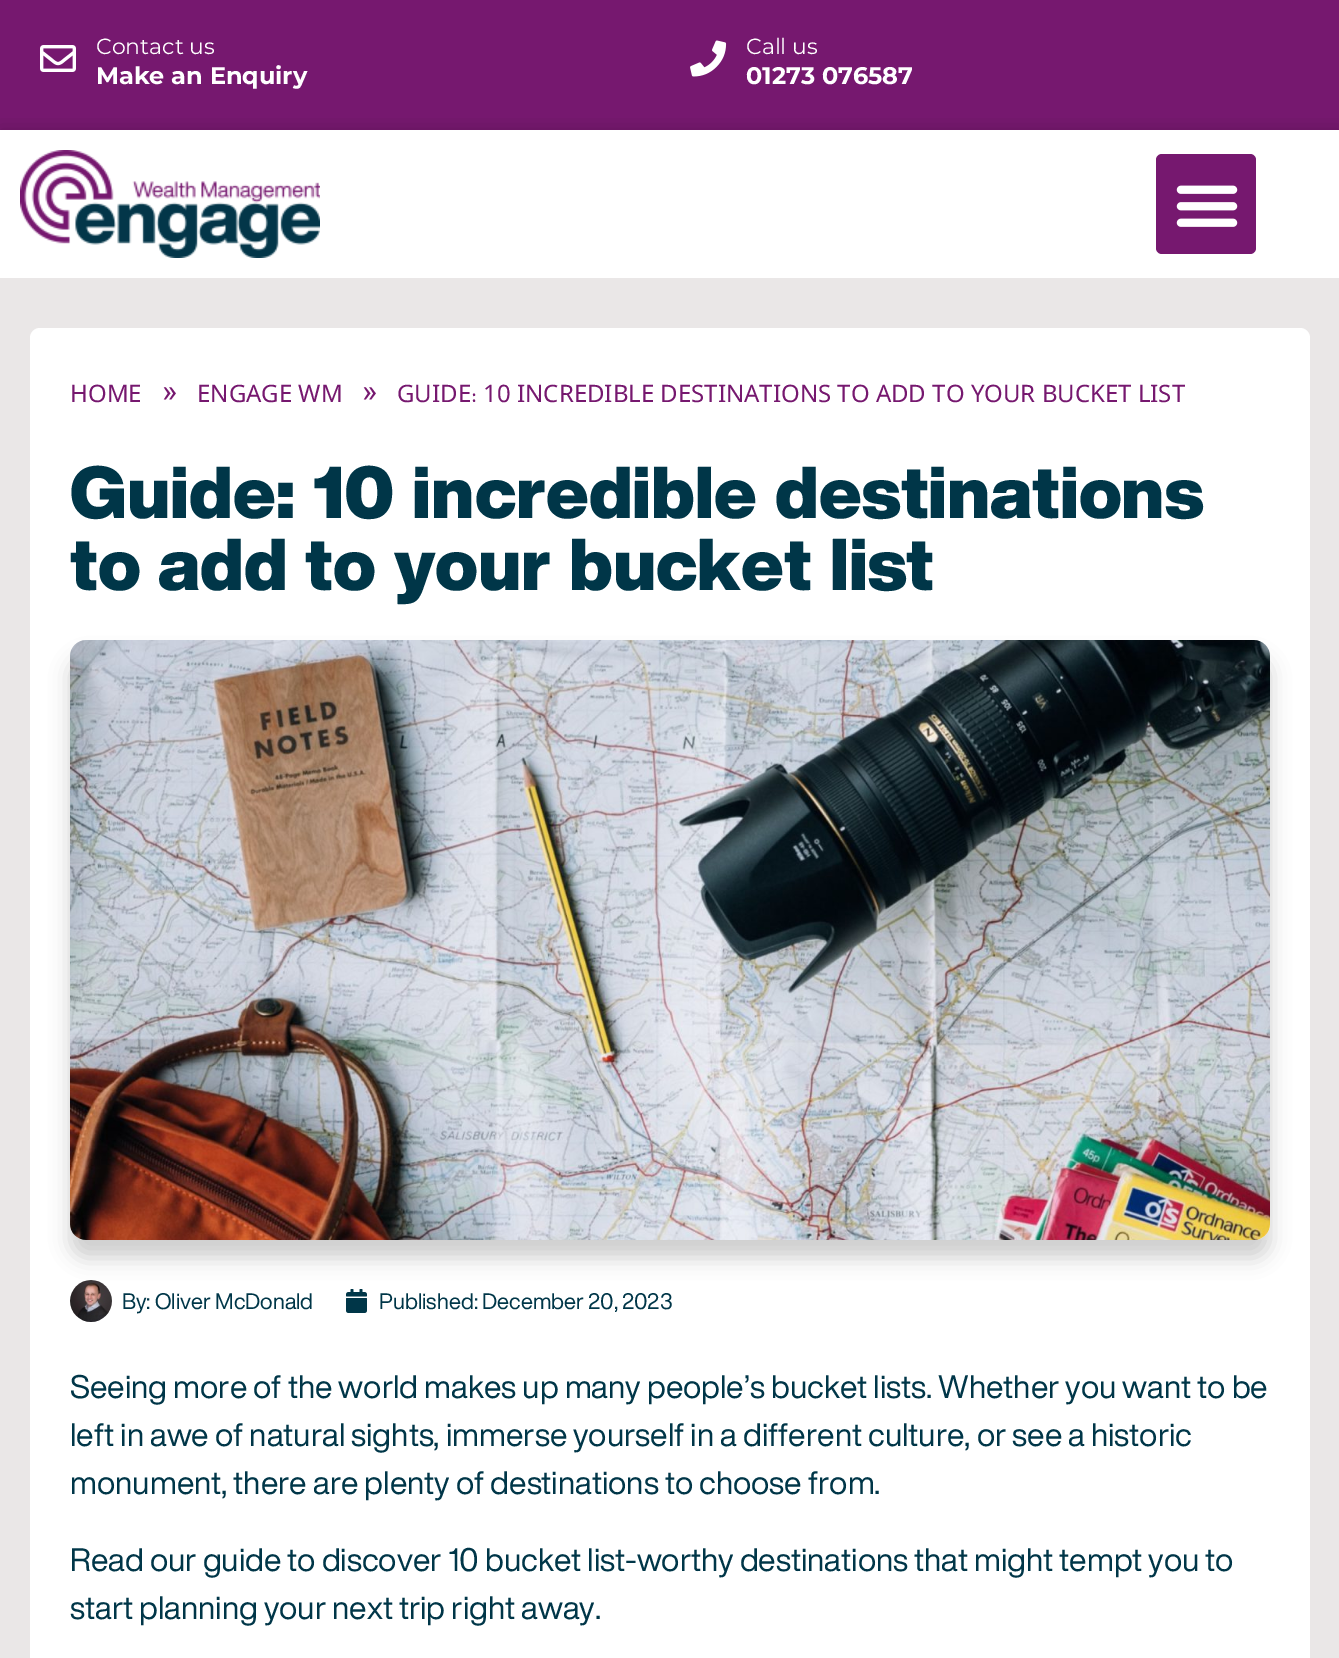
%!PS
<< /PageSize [1339 1658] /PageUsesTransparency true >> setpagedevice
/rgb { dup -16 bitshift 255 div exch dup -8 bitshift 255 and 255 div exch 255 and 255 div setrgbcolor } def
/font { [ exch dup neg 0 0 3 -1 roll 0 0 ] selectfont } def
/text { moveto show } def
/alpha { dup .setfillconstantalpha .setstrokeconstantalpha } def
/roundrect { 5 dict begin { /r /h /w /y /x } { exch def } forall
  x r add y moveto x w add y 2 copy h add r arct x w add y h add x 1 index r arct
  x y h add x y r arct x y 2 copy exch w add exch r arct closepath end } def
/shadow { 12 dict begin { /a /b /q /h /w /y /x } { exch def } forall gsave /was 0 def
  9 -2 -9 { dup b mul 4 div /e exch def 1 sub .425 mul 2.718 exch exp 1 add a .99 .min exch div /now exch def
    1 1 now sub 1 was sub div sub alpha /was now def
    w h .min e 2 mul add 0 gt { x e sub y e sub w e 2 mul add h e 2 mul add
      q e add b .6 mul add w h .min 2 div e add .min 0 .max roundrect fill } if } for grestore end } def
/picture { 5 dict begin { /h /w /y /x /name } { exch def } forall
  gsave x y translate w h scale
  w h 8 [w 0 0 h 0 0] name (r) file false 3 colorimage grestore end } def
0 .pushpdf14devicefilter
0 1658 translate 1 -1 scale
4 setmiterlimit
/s1 { /Montserrat-Regular 22 font 16#FFFFFF rgb } def
/s2 { /Montserrat-Bold 24 font 16#FFFFFF rgb } def
/s3 { /NotoSansSyriac-Regular 24 font 16#76186F rgb } def
/s4 { /Roboto-Regular 32 font 16#76186F rgb } def
/s5 { /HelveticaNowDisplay-Black 72 font 16#003648 rgb } def
/s6 { /HelveticaNowDisplay-Regular 22 font 16#003648 rgb } def
/s7 { /HelveticaNowDisplay-Regular 32 font 16#003648 rgb } def
16#FFFFFF rgb
0 0 1339 1658 rectfill
16#76186F rgb
0 0 1339 130 rectfill
(pic1.raw) 40 45 36 27 picture
s1
(Contact us) 96 54 text
s2
(Make an Enquiry) 96 84 text
(pic2.raw) 690 40 37 37 picture
s1
(Call us) 746 54 text
s2
(01273 076587) 746 84 text
gsave
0 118 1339 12 rectclip
16#000000 rgb
0 130 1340 148 0 10 0.17 shadow
grestore
(pic3.raw) 20 150 300 108 picture
16#76186F rgb
1156 154 100 100 6 roundrect fill
(pic4.raw) 1176 185 62 42 picture
16#EAE7E7 rgb
0 278 1339 1380 rectfill
16#FFFFFF rgb
30 328 1280 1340 10 roundrect fill
s3
(HOME) 70 402 text
s4
(») 162 402 text
s3
(ENGAGE WM) 197 402 text
s4
(») 362 402 text
s3
(GUIDE: 10 INCREDIBLE DESTINATIONS TO ADD TO YOUR BUCKET LIST) 397 402 text
s5
(Guide: 10 incredible destinations) 70 518 text
(to add to your bucket list) 70 590 text
16#000000 rgb
70 658 1200 600 16 10 0.19 shadow
(pic5.raw) 70 640 1200 600 picture
(pic6.raw) 70 1280 42 42 picture
s6
(By: Oliver McDonald) 122 1309 text
(pic7.raw) 346 1289 21 24 picture
(Published: December 20, 2023) 379 1309 text
s7
(Seeing more of the world makes up many people’s bucket lists. Whether you want to be) 70 1398 text
(left in awe of natural sights, immerse yourself in a different culture, or see a historic) 70 1446 text
(monument, there are plenty of destinations to choose from.) 70 1494 text
(Read our guide to discover 10 bucket list-worthy destinations that might tempt you to) 70 1571 text
(start planning your next trip right away.) 70 1619 text
.poppdf14devicefilter showpage
